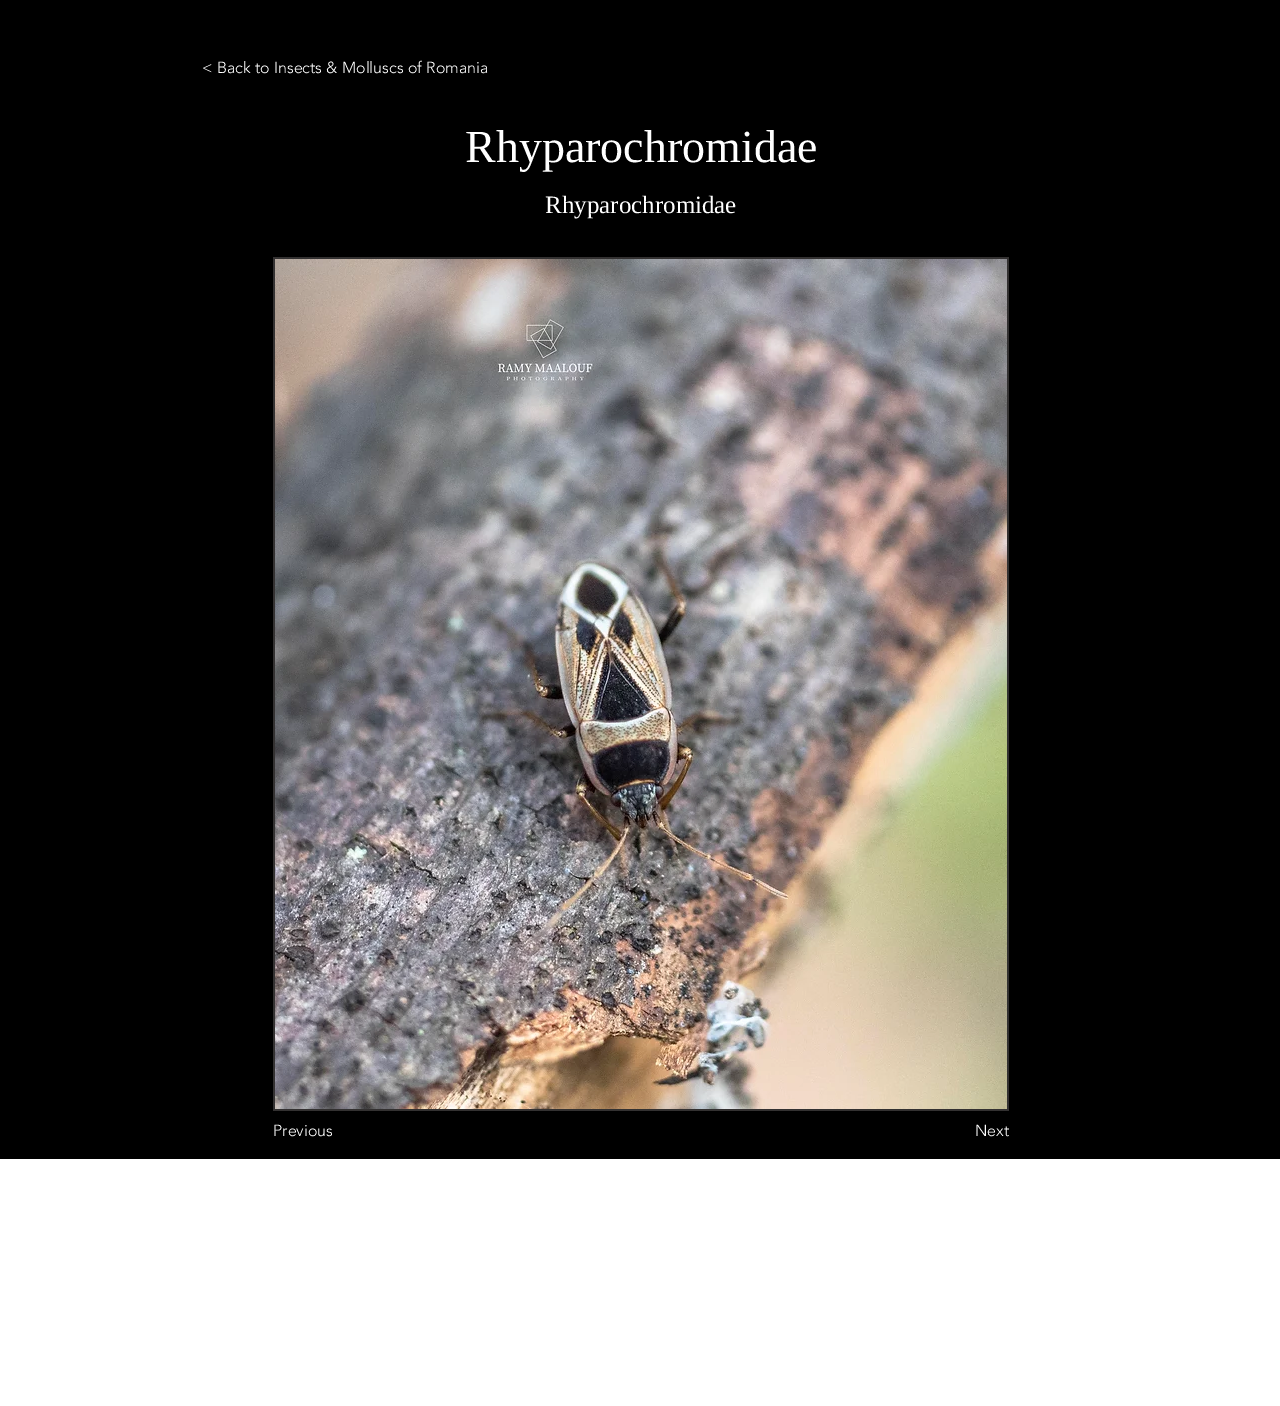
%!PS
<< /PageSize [1280 1406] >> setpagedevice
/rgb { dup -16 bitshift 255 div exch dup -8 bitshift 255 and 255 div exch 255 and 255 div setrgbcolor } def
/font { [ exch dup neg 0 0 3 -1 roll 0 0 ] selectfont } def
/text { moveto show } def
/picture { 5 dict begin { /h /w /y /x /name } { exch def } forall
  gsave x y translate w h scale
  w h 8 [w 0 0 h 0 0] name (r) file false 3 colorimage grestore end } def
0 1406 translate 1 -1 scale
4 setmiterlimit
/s1 { /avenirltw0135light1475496-Light 16 font 16#FFFFFF rgb } def
/s2 { /LiberationSerif-Regular 46 font 16#FFFFFF rgb } def
/s3 { /LiberationSerif-Regular 25 font 16#FFFFFF rgb } def
16#FFFFFF rgb
0 0 1280 1406 rectfill
16#000000 rgb
0 0 1280 1159 rectfill
s1
(< Back to Insects & Molluscs of Romania) 202 73 text
s2
(Rhyparochromidae) 465 162 text
s3
(Rhyparochromidae) 545 213 text
16#333131 rgb
273 257 736 854 rectfill
(pic1.raw) 275 259 732 850 picture
s1
(Previous) 273 1136 text
(Next) 975 1136 text
showpage
